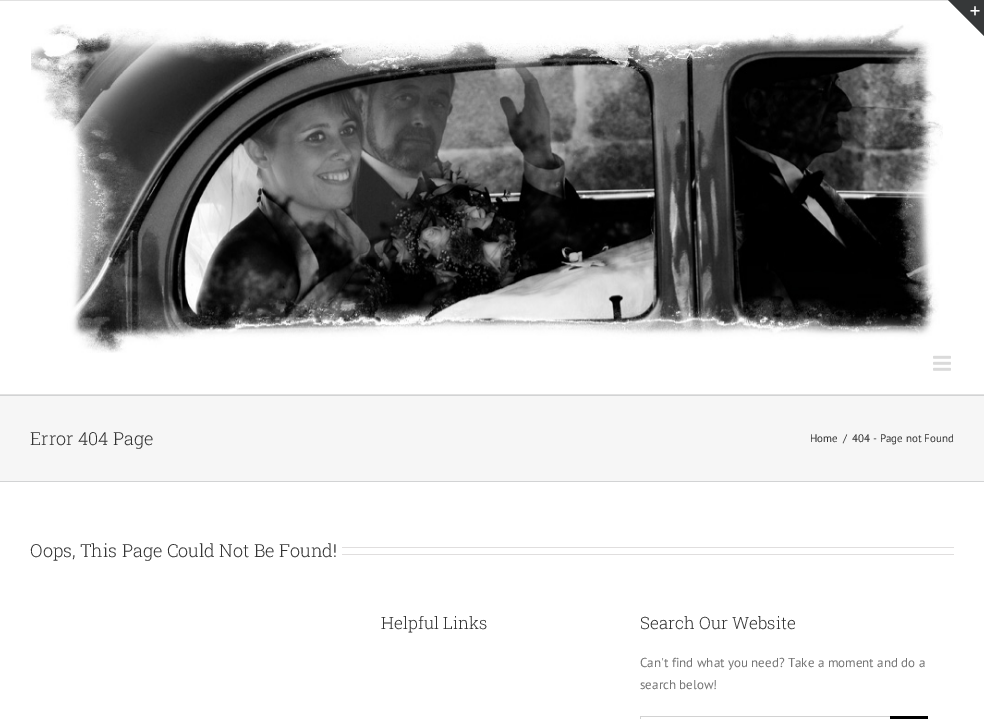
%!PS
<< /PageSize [984 719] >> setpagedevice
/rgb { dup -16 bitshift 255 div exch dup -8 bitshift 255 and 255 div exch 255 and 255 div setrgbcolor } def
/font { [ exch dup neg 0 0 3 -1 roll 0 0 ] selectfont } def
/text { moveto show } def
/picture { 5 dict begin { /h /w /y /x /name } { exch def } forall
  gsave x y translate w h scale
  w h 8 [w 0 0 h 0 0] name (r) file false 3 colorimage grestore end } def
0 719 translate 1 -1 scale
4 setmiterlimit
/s1 { /RobotoSlab-Light 18 font 16#333333 rgb } def
/s2 { /PTSans-Regular 11 font 16#333333 rgb } def
/s3 { /RobotoSlab-Light 17 font 16#333333 rgb } def
/s4 { /PTSans-Regular 13 font 16#747474 rgb } def
16#F6F6F6 rgb
0 0 984 719 rectfill
16#E1E1E1 rgb
0 0 949 1 rectfill
16#FFFFFF rgb
0 1 984 393 rectfill
16#E1E1E1 rgb
0 394 984 1 rectfill
(pic1.raw) 31 24 912 329 picture
(pic2.raw) 933 355 18 16 picture
16#363839 rgb
948 0 moveto 984 0 lineto 984 36 lineto closepath fill
(pic3.raw) 970 6 10 10 picture
16#D2D3D4 rgb
0 395 984 1 rectfill
0 481 984 1 rectfill
s1
(Error 404 Page) 30 445 text
s2
(Home) 810 442 text
(/) 843 442 text
(404 - Page not Found) 852 442 text
16#FFFFFF rgb
0 482 984 237 rectfill
s1
(Oops, This Page Could Not Be Found!) 30 557 text
16#E0DEDE rgb
342 547 612 1 rectfill
342 554 612 1 rectfill
s3
(Helpful Links) 381 629 text
(Search Our Website) 640 629 text
s4
(Can't find what you need? Take a moment and do a) 640 667 text
(search below!) 640 689 text
16#D2D2D2 rgb
640 716 250 1 rectfill
640 716 1 3 rectfill
16#000000 rgb
890 716 38 3 rectfill
showpage
